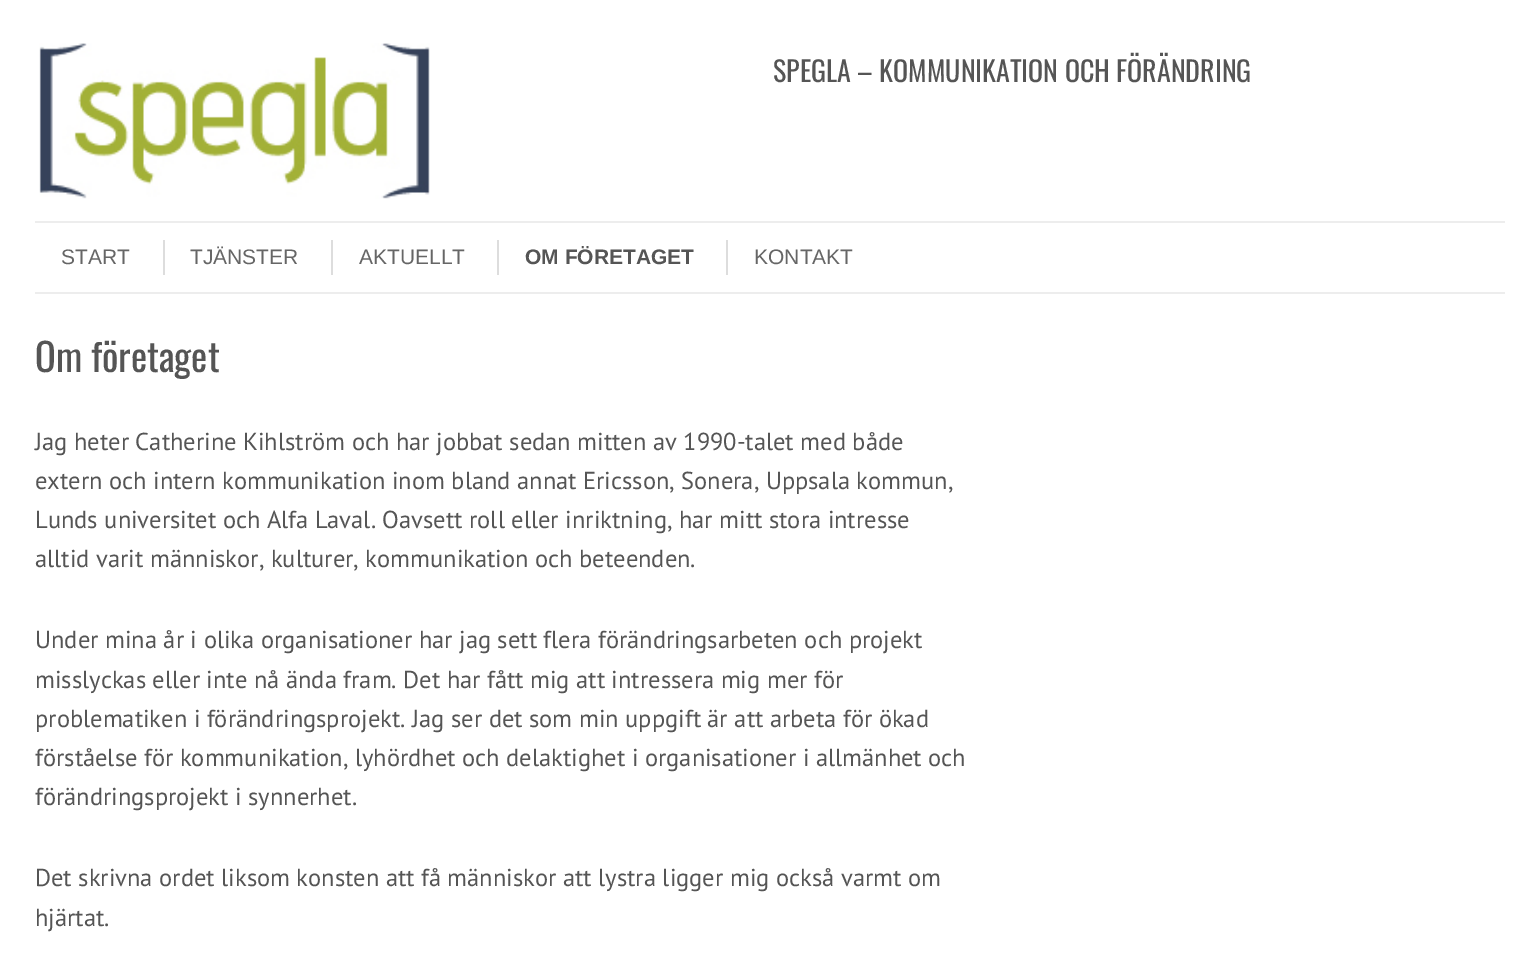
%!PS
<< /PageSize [1540 965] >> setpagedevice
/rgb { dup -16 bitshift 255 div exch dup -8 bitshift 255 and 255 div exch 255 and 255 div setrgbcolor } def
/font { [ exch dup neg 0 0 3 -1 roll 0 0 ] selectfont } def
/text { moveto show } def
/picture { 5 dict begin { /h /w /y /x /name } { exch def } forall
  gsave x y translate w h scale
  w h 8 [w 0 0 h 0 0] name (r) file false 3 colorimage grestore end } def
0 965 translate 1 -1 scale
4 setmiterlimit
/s1 { /Oswald-Regular 28 font 16#555555 rgb } def
/s2 { /LiberationSans-Regular 21 font 16#666666 rgb } def
/s3 { /LiberationSans-Bold 21 font 16#555555 rgb } def
/s4 { /Oswald-Regular 38.5 font 16#555555 rgb } def
/s5 { /PTSans-Regular 24.5 font 16#555555 rgb } def
16#FFFFFF rgb
0 0 1540 965 rectfill
(pic1.raw) 39 43 391 156 picture
s1
(SPEGLA – KOMMUNIKATION OCH FÖRÄNDRING) 773 82 text
16#EDEDED rgb
35 221 1470 2 rectfill
35 292 1470 2 rectfill
s2
(START) 61 264 text
16#DDDDDD rgb
163 240 2 35 rectfill
s2
(TJÄNSTER) 190 264 text
16#DDDDDD rgb
331 240 2 35 rectfill
s2
(AKTUELLT) 359 264 text
16#DDDDDD rgb
497 240 2 35 rectfill
s3
(OM FÖRETAGET) 525 264 text
16#DDDDDD rgb
726 240 2 35 rectfill
s2
(KONTAKT) 754 264 text
s4
(Om företaget) 35 372 text
s5
(Jag heter Catherine Kihlström och har jobbat sedan mitten av 1990-talet med både) 35 450 text
(extern och intern kommunikation inom bland annat Ericsson, Sonera, Uppsala kommun,) 35 489 text
(Lunds universitet och Alfa Laval. Oavsett roll eller inriktning, har mitt stora intresse) 35 528 text
(alltid varit människor, kulturer, kommunikation och beteenden.) 35 567 text
(Under mina år i olika organisationer har jag sett flera förändringsarbeten och projekt) 35 648 text
(misslyckas eller inte nå ända fram. Det har fått mig att intressera mig mer för) 35 688 text
(problematiken i förändringsprojekt. Jag ser det som min uppgift är att arbeta för ökad) 35 727 text
(förståelse för kommunikation, lyhördhet och delaktighet i organisationer i allmänhet och) 35 766 text
(förändringsprojekt i synnerhet.) 35 805 text
(Det skrivna ordet liksom konsten att få människor att lystra ligger mig också varmt om) 35 886 text
(hjärtat.) 35 926 text
showpage
